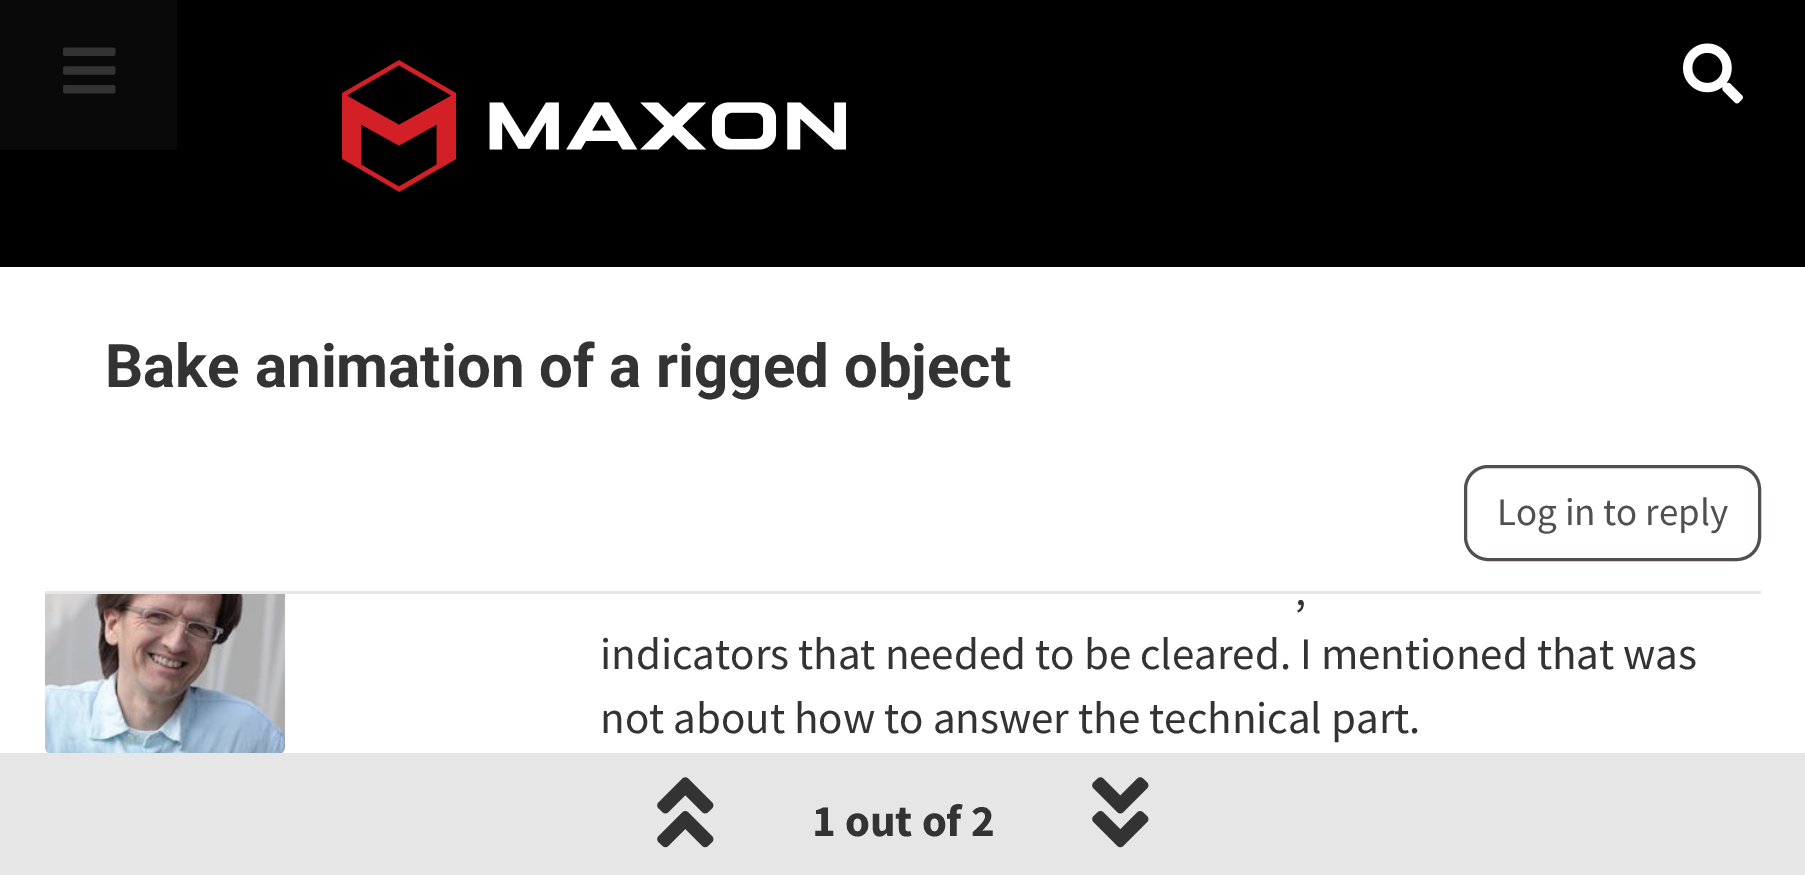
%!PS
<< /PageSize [1805 875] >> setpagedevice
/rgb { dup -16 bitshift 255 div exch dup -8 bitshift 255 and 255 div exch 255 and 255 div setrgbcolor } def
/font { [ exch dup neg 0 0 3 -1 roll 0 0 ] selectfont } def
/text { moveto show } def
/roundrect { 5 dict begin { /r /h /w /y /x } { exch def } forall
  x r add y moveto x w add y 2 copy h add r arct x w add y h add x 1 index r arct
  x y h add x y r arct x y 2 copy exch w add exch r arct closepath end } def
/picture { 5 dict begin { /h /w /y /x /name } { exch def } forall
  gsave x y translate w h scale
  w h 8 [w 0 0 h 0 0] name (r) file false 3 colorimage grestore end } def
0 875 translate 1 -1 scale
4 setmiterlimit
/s1 { /Roboto-Bold 60 font 16#333333 rgb } def
/s2 { /SourceSansPro-Regular 39 font 16#505050 rgb } def
/s3 { /SourceSansPro-Regular 45 font 16#333333 rgb } def
/s4 { /SourceSansPro-Bold 45 font 16#333333 rgb } def
16#FFFFFF rgb
0 0 1805 875 rectfill
16#000000 rgb
0 0 1805 267 rectfill
16#090909 rgb
0 0 177 150 rectfill
(pic1.raw) 63 47 53 47 picture
(pic2.raw) 342 60 504 132 picture
(pic3.raw) 1683 43 60 61 picture
s1
(Bake animation of a rigged object) 105 387 text
16#E6E6E6 rgb
45 591 1716 3 rectfill
16#554E4E rgb
3 setlinewidth
1465.5 466.5 294 93 22.5 roundrect stroke
s2
(Log in to reply) 1497 525 text
(pic4.raw) 45 594 240 159 picture
s3
(,) 1295 605 text
(indicators that needed to be cleared. I mentioned that was) 600 669 text
(not about how to answer the technical part.) 600 733 text
16#E6E6E6 rgb
0 753 1805 122 rectfill
(pic5.raw) 657 777 57 71 picture
s4
(1 out of 2) 812 836 text
(pic6.raw) 1092 777 57 71 picture
showpage
